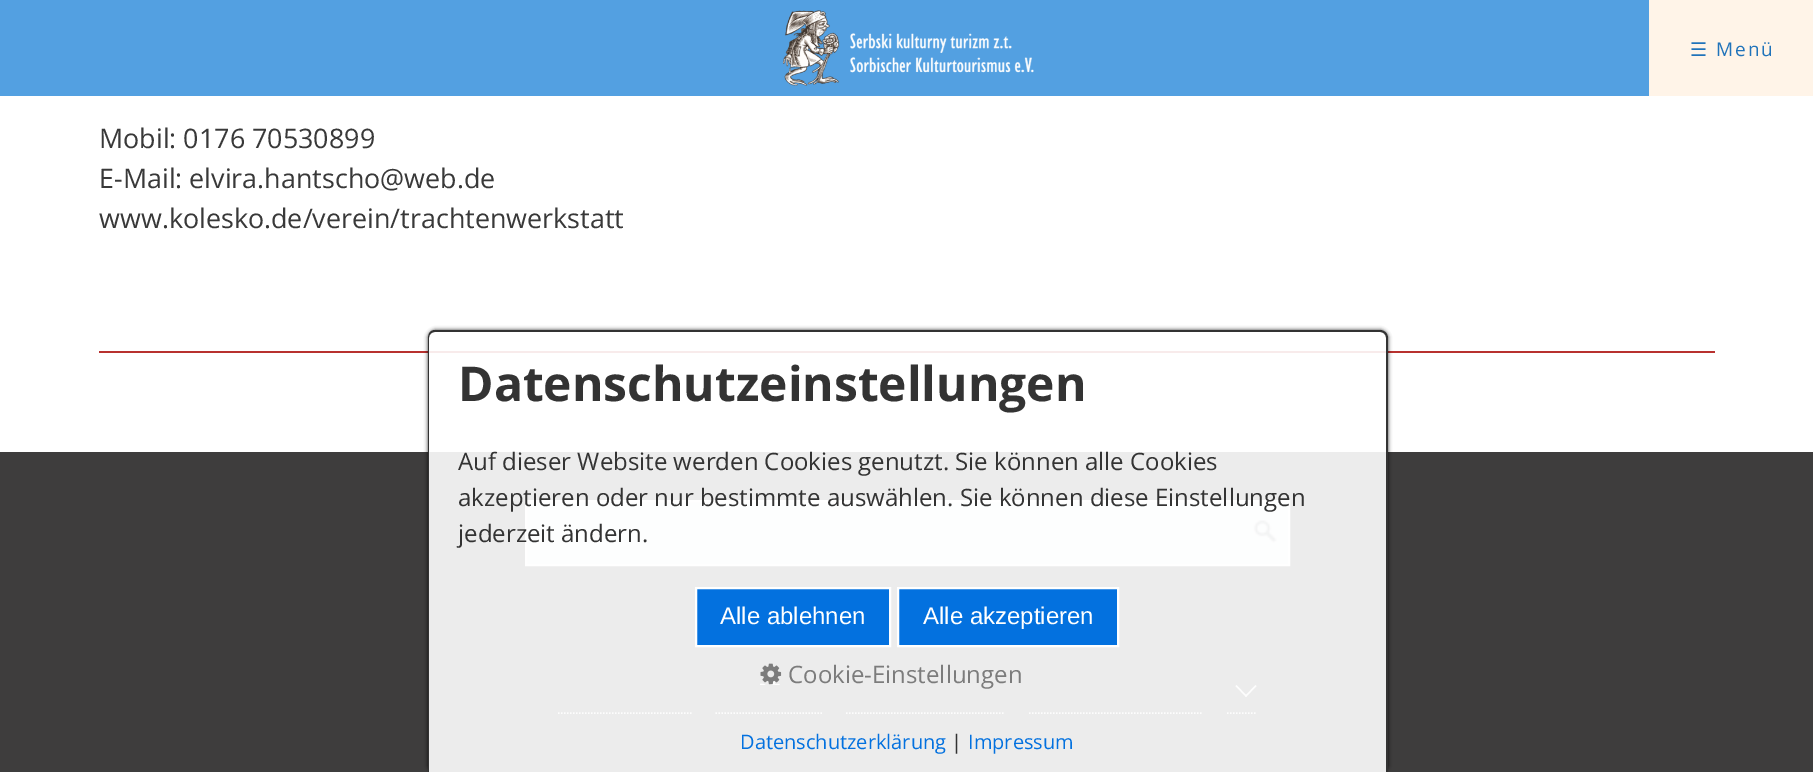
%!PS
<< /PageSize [1813 772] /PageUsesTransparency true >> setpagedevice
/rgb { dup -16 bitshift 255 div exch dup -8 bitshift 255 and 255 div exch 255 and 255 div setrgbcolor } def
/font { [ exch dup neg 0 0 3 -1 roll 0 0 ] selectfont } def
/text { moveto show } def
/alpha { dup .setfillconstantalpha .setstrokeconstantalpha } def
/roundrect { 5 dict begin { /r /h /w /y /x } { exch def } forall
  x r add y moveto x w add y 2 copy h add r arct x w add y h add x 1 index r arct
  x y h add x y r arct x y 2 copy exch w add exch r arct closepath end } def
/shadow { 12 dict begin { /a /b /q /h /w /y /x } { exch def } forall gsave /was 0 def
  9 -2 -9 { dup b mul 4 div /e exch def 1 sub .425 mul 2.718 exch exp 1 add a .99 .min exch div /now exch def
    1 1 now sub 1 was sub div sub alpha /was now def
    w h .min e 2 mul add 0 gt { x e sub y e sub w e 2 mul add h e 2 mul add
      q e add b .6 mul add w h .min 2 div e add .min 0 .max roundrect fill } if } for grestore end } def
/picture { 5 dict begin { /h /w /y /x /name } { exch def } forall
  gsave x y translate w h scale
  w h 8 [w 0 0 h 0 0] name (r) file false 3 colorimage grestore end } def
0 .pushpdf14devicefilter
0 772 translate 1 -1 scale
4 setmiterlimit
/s1 { /OpenSans-Regular 26.9 font 16#393939 rgb } def
/s2 { /OpenSans-Bold 48 font 16#333333 rgb } def
/s3 { /OpenSans-Regular 24 font 16#333333 rgb } def
/s4 { /LiberationSans-Regular 24 font 16#FFFFFF rgb } def
/s5 { /OpenSans-Regular 24 font 16#7C7C7C rgb } def
/s6 { /OpenSans-Regular 20 font 16#0371DF rgb } def
/s7 { /OpenSans-Regular 20 font 16#333333 rgb } def
16#FFFFFF rgb
0 0 1813 772 rectfill
16#53A0E1 rgb
0 0 1649 96 rectfill
(pic1.raw) 783 10 251 76 picture
16#FFF4E8 rgb
1649 0 164 96 rectfill
/DejaVuSans-Regular 19 font
16#2073BA rgb
1690 56 moveto 2 0 (☰) ashow
/OpenSans-Regular 19 font
1716 56 moveto 2 0 (Menü) ashow
s1
(Mobil: 0176 70530899) 99 148 text
(E-Mail: elvira.hantscho@web.de) 99 188 text
(www.kolesko.de/verein/trachtenwerkstatt) 99 228 text
16#B8312F rgb
99 351 1616 2 rectfill
16#3E3D3D rgb
0 452 1813 320 rectfill
16#E7E7E7 rgb
1.5 setlinewidth
[1.5 1.5] 0 setdash
558 713 moveto 691.5 713 lineto stroke
715.5 713 moveto 823.5 713 lineto stroke
846 713 moveto 1005 713 lineto stroke
1029 713 moveto 1203 713 lineto stroke
1227 713 moveto 1255.5 713 lineto stroke
1255.5 685 moveto 1256.5 686 lineto 1246 697 lineto 1245 696 lineto closepath fill
1236.5 685 moveto 1247 696 lineto 1246 697 lineto 1235.5 686 lineto closepath fill
16#EFF2F4 rgb
526 501 moveto 1289 501 lineto 1289 565 lineto 526 565 lineto closepath gsave fill grestore
16#FFFFFF rgb
2 setlinewidth
[] 0 setdash
stroke
(pic3.raw) 1253 520 24 23 picture
gsave
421 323 moveto 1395 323 lineto 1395 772 lineto 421 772 lineto closepath 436 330 moveto 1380 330 lineto 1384.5 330 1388 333.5 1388 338 curveto 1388 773 lineto 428 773 lineto 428 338 lineto 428 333.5 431.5 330 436 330 curveto closepath eoclip newpath
16#000000 rgb
428 330 960 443 8 2 0.8 shadow
grestore
0.9 alpha
436 330 moveto 1380 330 lineto 1384.5 330 1388 333.5 1388 338 curveto 1388 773 lineto 428 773 lineto 428 338 lineto 428 333.5 431.5 330 436 330 curveto closepath fill
1 alpha
16#333333 rgb
435 330 moveto 1380 330 lineto 1384 330 1388 333 1388 338 curveto 1388 772 lineto 428 772 lineto 428 338 lineto 428 333 431 330 435 330 curveto closepath 435 332 moveto 1380 332 lineto 1383 332 1386 334 1386 338 curveto 1386 772 lineto 429 772 lineto 429 338 lineto 429 334 432 332 435 332 curveto closepath eofill
s2
(Datenschutzeinstellungen) 458 401 text
s3
(Auf dieser Website werden Cookies genutzt. Sie können alle Cookies) 458 470 text
(akzeptieren oder nur bestimmte auswählen. Sie können diese Einstellungen) 458 506 text
(jederzeit ändern.) 458 542 text
16#0371DF rgb
696 588 moveto 890 588 lineto 890 646 lineto 696 646 lineto closepath gsave fill grestore
16#FFFFFF rgb
stroke
s4
(Alle ablehnen) 720 624 text
16#0371DF rgb
898 588 moveto 1118 588 lineto 1118 646 lineto 898 646 lineto closepath gsave fill grestore
16#FFFFFF rgb
stroke
(Alle akzeptieren) 923 624 text
(pic2.raw) 760 663 22 22 picture
s5
(Cookie-Einstellungen) 788 683 text
s6
(Datenschutzerklärung) 740 749 text
s7
(|) 951 749 text
s6
(Impressum) 968 749 text
.poppdf14devicefilter showpage
